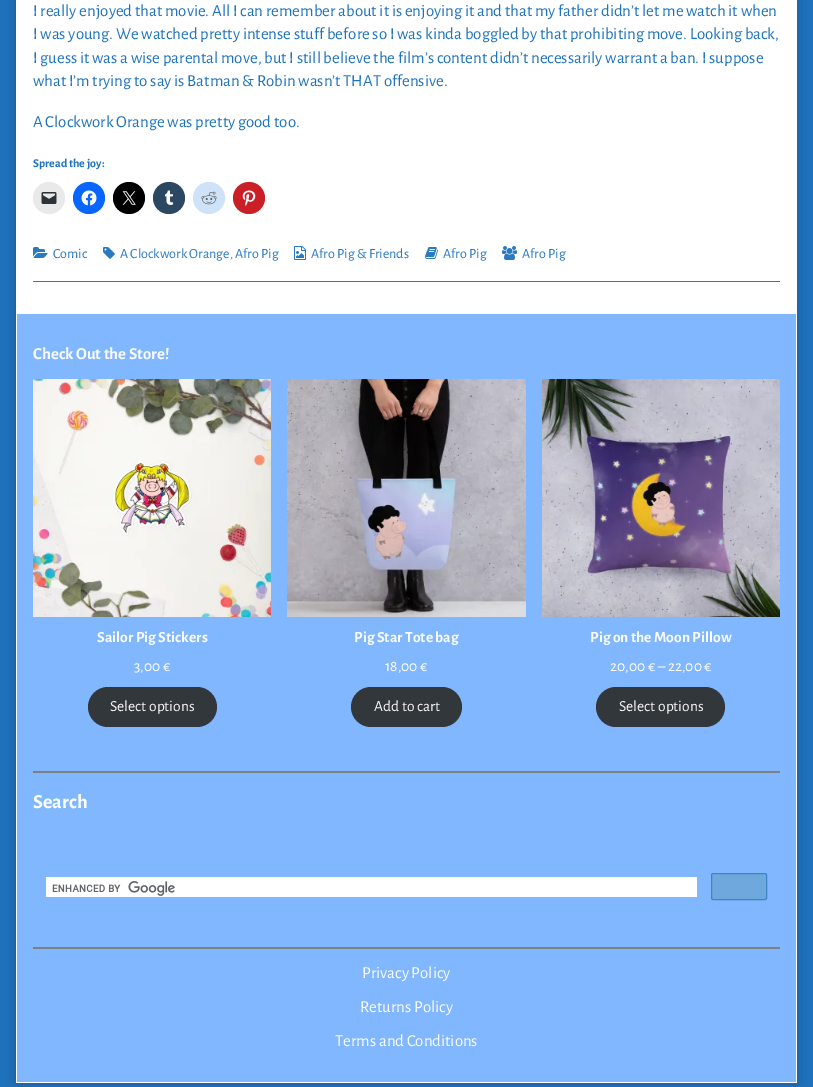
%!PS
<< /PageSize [813 1087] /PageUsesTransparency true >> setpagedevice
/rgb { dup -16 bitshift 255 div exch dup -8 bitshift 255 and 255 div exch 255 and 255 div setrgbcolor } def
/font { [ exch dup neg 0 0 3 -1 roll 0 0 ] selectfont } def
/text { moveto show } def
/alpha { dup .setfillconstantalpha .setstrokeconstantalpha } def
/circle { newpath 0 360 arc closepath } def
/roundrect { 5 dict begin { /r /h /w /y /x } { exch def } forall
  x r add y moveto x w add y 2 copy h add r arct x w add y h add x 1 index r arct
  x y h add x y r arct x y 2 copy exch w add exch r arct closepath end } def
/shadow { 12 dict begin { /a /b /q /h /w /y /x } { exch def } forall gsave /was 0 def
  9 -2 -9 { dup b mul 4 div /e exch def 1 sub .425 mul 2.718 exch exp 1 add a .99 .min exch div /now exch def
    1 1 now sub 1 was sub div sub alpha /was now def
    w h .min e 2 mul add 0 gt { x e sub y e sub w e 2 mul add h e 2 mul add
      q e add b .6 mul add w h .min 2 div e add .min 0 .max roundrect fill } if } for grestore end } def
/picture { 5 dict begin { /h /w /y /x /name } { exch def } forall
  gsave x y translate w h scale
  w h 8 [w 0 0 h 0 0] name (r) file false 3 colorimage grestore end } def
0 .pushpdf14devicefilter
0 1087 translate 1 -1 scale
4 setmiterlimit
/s1 { /AlegreyaSans-Regular 16.8 font 16#1E73BE rgb } def
/s2 { /AlegreyaSans-Bold 12 font 16#1E73BE rgb } def
/s3 { /AlegreyaSans-Regular 14 font 16#297AC1 rgb } def
/s4 { /AlegreyaSans-Bold 16.8 font 16#F9FBFF rgb } def
/s5 { /AlegreyaSans-Bold 15.5 font 16#F9FBFF rgb } def
/s6 { /AlegreyaSans-Regular 15.5 font 16#FFFFFF rgb } def
/s7 { /AlegreyaSans-Regular 15.5 font 16#F5F5F5 rgb } def
/s8 { /AlegreyaSans-Bold 20 font 16#FFFFFF rgb } def
/s9 { /AlegreyaSans-Regular 16.8 font 16#F9FBFF rgb } def
16#1E73BE rgb
0 0 813 1087 rectfill
16#000000 rgb
16 -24 781 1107 0 8 0.2 shadow
16#FFFFFF rgb
16 0 781 1083 rectfill
s1
(I really enjoyed that movie. All I can remember about it is enjoying it and that my father didn’t let me watch it when) 33 16 text
(I was young. We watched pretty intense stuff before so I was kinda boggled by that prohibiting move. Looking back,) 33 39 text
(I guess it was a wise parental move, but I still believe the film’s content didn’t necessarily warrant a ban. I suppose) 33 63 text
(what I’m trying to say is Batman & Robin wasn’t THAT offensive.) 33 86 text
(A Clockwork Orange was pretty good too.) 33 127 text
s2
(Spread the joy:) 33 167 text
16#E9E9E9 rgb
49 198 16 circle fill
(pic1.raw) 41 192 16 12 picture
16#0866FF rgb
89 198 16 circle fill
(pic2.raw) 81 190 16 16 picture
16#000000 rgb
129 198 16 circle fill
(pic3.raw) 122 191 14 14 picture
16#2C4762 rgb
169 198 16 circle fill
(pic4.raw) 164 190 10 15 picture
16#CEE3F8 rgb
209 198 16 circle fill
(pic5.raw) 201 191 16 14 picture
16#CA1F27 rgb
249 198 16 circle fill
(pic6.raw) 242 190 14 16 picture
16#297AC1 rgb
33 281 747 1 rectfill
(pic7.raw) 33 247 15 11 picture
s3
(Comic) 53 258 text
(pic8.raw) 103 247 12 12 picture
(A Clockwork Orange, Afro Pig) 120 258 text
(pic9.raw) 294 246 12 14 picture
(Afro Pig & Friends) 311 258 text
(pic10.raw) 425 247 13 12 picture
(Afro Pig) 443 258 text
(pic11.raw) 502 246 15 14 picture
(Afro Pig) 522 258 text
16#81B7FF rgb
17 314 779 768 rectfill
s4
(Check Out the Store!) 33 359 text
(pic12.raw) 33 379 238 238 picture
s5
(Sailor Pig Stickers) 97 642 text
s6
(3,00 €) 134 671 text
16#32373C rgb
88 687 129 40 20 roundrect fill
s7
(Select options) 110 711 text
(pic13.raw) 287 379 239 238 picture
s5
(Pig Star Tote bag) 354 642 text
s6
(18,00 €) 385 671 text
16#32373C rgb
351 687 111 40 20 roundrect fill
s7
(Add to cart) 374 711 text
(pic14.raw) 542 379 238 238 picture
s5
(Pig on the Moon Pillow) 590 642 text
s6
(20,00 € – 22,00 €) 610 671 text
16#32373C rgb
596 687 129 40 20 roundrect fill
s7
(Select options) 619 711 text
16#808080 rgb
33 771 747 2 rectfill
s8
(Search) 33 808 text
46 877 651 20 rectfill
(pic15.raw) 52 881 123 15 picture
16#6FA8DC rgb
711.5 873.5 55 26 1.5 roundrect gsave fill grestore
16#3D85C6 rgb
stroke
16#808080 rgb
33 947 747 2 rectfill
s9
(Privacy Policy) 362 978 text
(Returns Policy) 360 1012 text
(Terms and Conditions) 335 1046 text
.poppdf14devicefilter showpage
